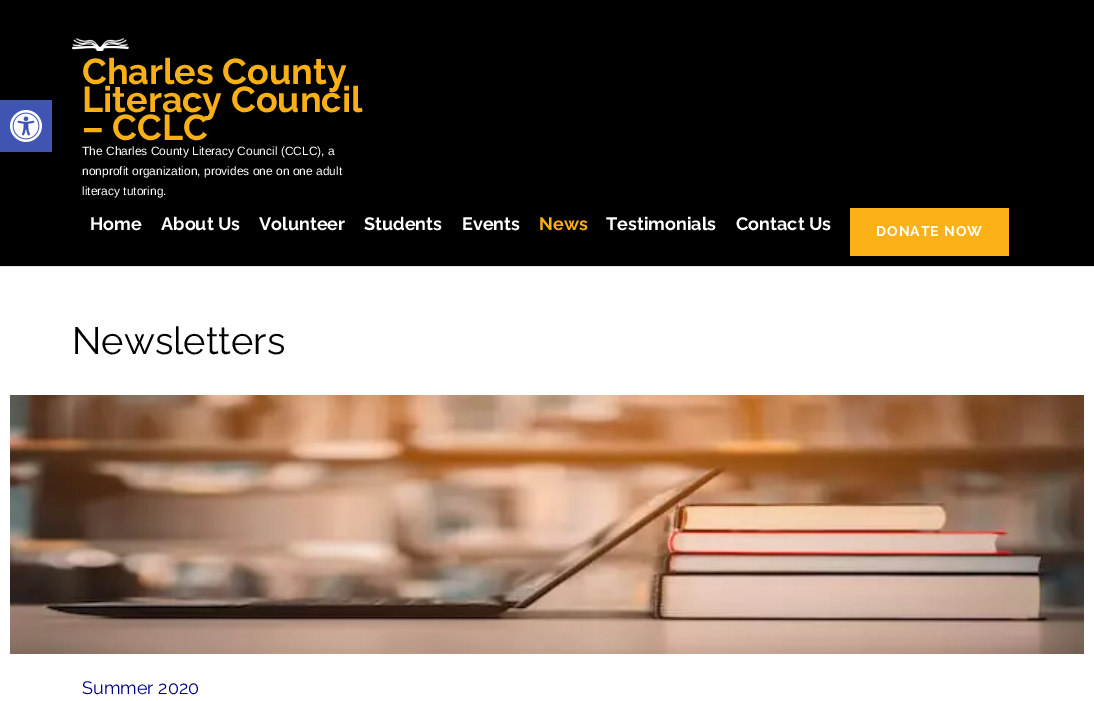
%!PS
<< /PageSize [1094 701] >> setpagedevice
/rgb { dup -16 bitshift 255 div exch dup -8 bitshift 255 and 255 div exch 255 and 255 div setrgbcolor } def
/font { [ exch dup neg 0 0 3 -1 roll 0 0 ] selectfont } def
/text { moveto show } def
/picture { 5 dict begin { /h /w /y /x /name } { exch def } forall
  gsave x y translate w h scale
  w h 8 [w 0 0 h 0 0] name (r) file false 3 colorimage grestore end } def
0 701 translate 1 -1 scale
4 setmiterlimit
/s1 { /Raleway-Bold 36 font 16#F8B016 rgb } def
/s2 { /LiberationSans-Regular 12 font 16#FFFFFF rgb } def
/s3 { /Raleway-Bold 18 font 16#FFFFFF rgb } def
/s4 { /Raleway-Bold 18 font 16#F8B016 rgb } def
/s5 { /Raleway-Regular 38 font 16#000000 rgb } def
/s6 { /Raleway-Regular 18 font 16#000080 rgb } def
16#FFFFFF rgb
0 0 1094 701 rectfill
16#000000 rgb
0 0 1094 266 rectfill
16#4054B2 rgb
0 100 52 52 rectfill
(pic1.raw) 10 110 32 32 picture
16#E4E4E4 rgb
0 266 1094 1 rectfill
(pic2.raw) 72 38 57 13 picture
s1
(Charles County) 82 84 text
(Literacy Council) 82 112 text
(– CCLC) 82 140 text
s2
(The Charles County Literacy Council \(CCLC\), a) 82 155 text
(nonprofit organization, provides one on one adult) 82 175 text
(literacy tutoring.) 82 195 text
s3
(Home) 90 230 text
(About Us) 161 230 text
(Volunteer) 259 230 text
(Students) 364 230 text
(Events) 462 230 text
s4
(News) 539 230 text
s3
(Testimonials) 606 230 text
(Contact Us) 736 230 text
16#FCB216 rgb
850 208 159 48 rectfill
/Raleway-Bold 14 font
16#FFFFFF rgb
876 236 moveto 1 0 (DONATE NOW) ashow
s5
(Newsletters) 72 354 text
(pic3.raw) 10 395 1074 259 picture
s6
(Summer 2020) 82 694 text
showpage
